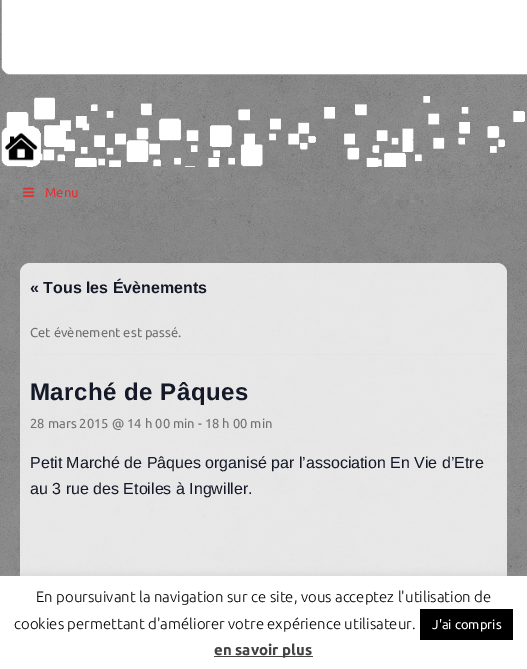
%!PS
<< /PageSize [527 669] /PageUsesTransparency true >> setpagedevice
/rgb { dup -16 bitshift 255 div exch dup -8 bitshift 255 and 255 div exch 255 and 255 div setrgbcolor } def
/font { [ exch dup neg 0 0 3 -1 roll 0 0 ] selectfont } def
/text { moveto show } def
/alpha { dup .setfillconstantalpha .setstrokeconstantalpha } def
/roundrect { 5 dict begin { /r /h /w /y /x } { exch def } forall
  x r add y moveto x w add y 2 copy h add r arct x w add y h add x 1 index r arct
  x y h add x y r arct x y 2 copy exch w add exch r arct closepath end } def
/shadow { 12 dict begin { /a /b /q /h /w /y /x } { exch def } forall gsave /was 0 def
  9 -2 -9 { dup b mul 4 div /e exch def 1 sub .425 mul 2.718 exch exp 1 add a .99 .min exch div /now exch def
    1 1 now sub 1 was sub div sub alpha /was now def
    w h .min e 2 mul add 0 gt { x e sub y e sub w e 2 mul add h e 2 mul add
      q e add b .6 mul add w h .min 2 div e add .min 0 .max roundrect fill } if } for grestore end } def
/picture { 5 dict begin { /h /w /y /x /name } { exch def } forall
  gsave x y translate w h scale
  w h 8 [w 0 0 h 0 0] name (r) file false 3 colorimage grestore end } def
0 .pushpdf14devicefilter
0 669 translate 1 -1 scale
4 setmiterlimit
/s1 { /Ubuntu-Regular 13 font 16#DD3333 rgb } def
/s2 { /LiberationSans-Bold 16 font 16#141827 rgb } def
/s3 { /Ubuntu-Regular 13 font 16#717171 rgb } def
/s4 { /LiberationSans-Regular 16 font 16#141827 rgb } def
/s5 { /Ubuntu-Light 15 font 16#000000 rgb } def
/s6 { /Ubuntu-Regular 13 font 16#FFFFFF rgb } def
/s7 { /Ubuntu-Bold 15 font 16#444444 rgb } def
16#FFFFFF rgb
0 0 527 669 rectfill
(pic1.raw) 0 0 527 576 picture
(pic2.raw) 1 0 526 167 picture
(pic3.raw) 23 187 12 10 picture
s1
(Menu) 45 197 text
0.8 alpha
16#FFFFFF rgb
20 263 487 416 10 roundrect fill
1 alpha
s2
(« Tous les Évènements) 30 293 text
16#E4E4E4 rgb
30 354 467 1 rectfill
s3
(Cet évènement est passé.) 30 337 text
/LiberationSans-Bold 24 font
16#141827 rgb
30 400 moveto 0.5 0 (Marché de Pâques) ashow
s3
(28 mars 2015 @ 14 h 00 min - 18 h 00 min) 30 428 text
s4
(Petit Marché de Pâques organisé par l’association En Vie d’Etre) 30 468 text
(au 3 rue des Etoiles à Ingwiller.) 30 494 text
16#ACABAB rgb
0 575 527 93 0 5 0.3 shadow
16#FFFFFF rgb
0 576 527 93 rectfill
s5
(En poursuivant la navigation sur ce site, vous acceptez l'utilisation de) 36 602 text
(cookies permettant d'améliorer votre expérience utilisateur.) 14 629 text
420 609 93 31 rectfill
s6
(J'ai compris) 432 629 text
16#444444 rgb
214 656 99 1 rectfill
s7
(en savoir plus) 214 655 text
.poppdf14devicefilter showpage
